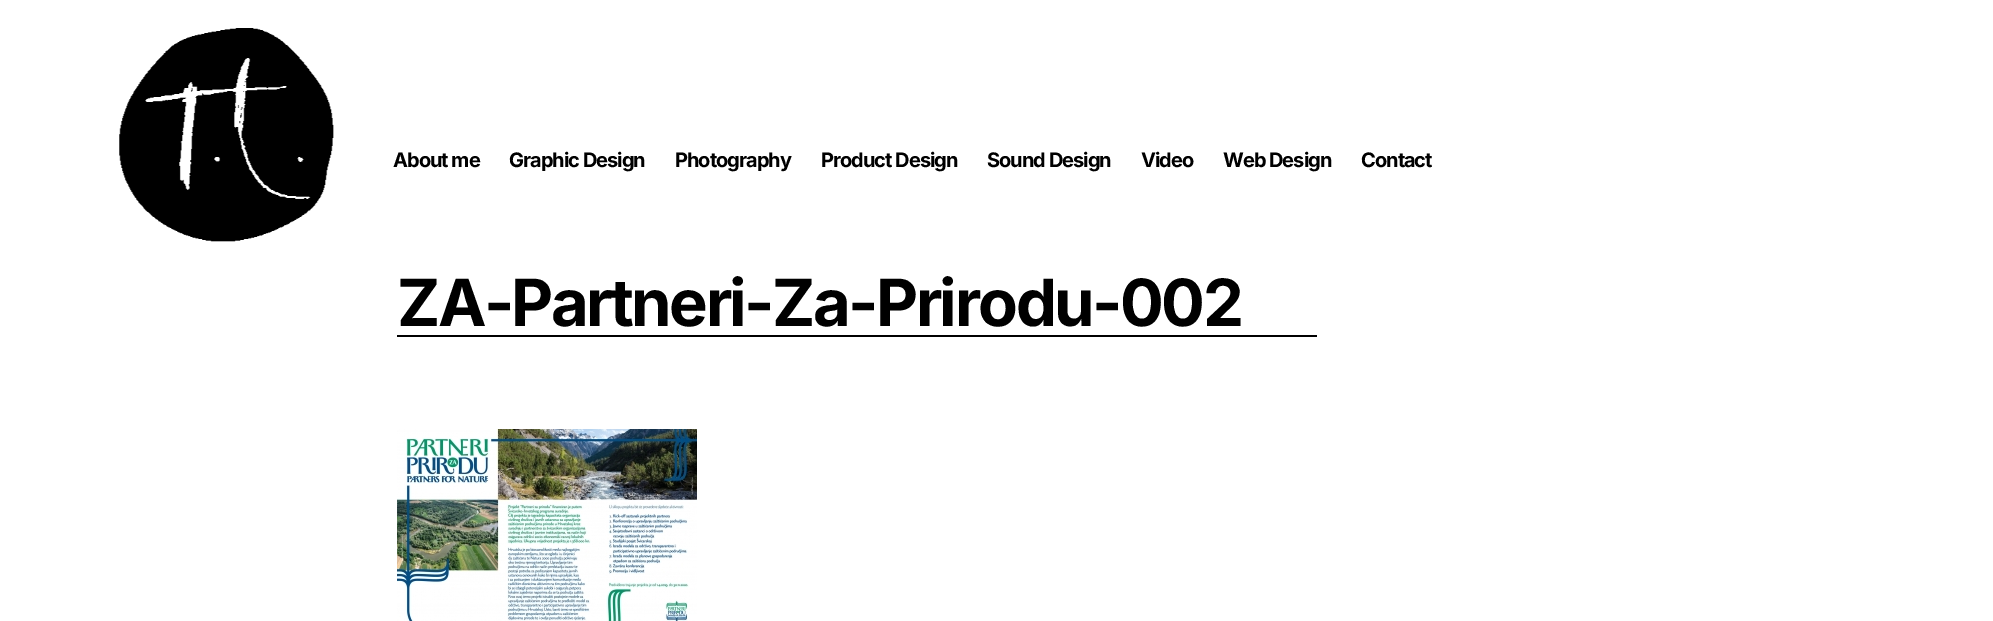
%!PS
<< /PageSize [1993 621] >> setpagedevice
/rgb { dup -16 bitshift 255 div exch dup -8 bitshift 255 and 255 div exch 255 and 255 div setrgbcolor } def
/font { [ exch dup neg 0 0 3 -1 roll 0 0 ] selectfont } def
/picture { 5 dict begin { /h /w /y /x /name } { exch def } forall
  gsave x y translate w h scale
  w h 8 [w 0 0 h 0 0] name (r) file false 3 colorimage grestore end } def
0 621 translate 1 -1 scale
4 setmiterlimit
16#FFFFFF rgb
0 0 1993 621 rectfill
(pic1.raw) 119 28 215 214 picture
/Inter-Bold 20 font
16#000000 rgb
393 167 moveto -1 0 (About me) ashow
509 167 moveto -1 0 (Graphic Design) ashow
675 167 moveto -1 0 (Photography) ashow
821 167 moveto -1 0 (Product Design) ashow
987 167 moveto -1 0 (Sound Design) ashow
1141 167 moveto -1 0 (Video) ashow
1223 167 moveto -1 0 (Web Design) ashow
1361 167 moveto -1 0 (Contact) ashow
397 335 920 2 rectfill
/Inter-Bold 65.1 font
397 326 moveto -2.6 0 (ZA-Partneri-Za-Prirodu-002) ashow
(pic2.raw) 397 429 300 192 picture
showpage
